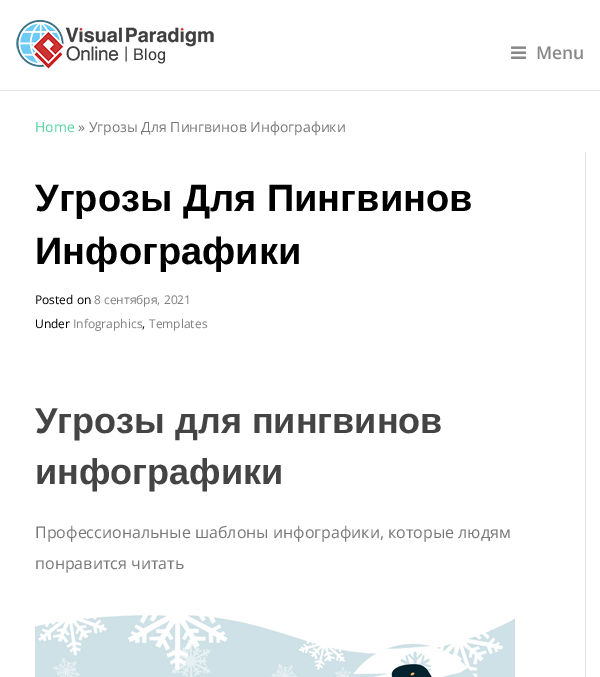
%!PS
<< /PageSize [600 677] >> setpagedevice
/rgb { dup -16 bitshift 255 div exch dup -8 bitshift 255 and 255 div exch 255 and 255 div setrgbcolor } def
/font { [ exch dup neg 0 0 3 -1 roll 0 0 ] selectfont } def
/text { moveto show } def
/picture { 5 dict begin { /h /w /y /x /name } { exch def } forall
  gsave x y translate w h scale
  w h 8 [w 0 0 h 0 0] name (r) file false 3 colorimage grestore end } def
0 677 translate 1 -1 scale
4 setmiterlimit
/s1 { /OpenSans-SemiBold 17.5 font 16#888888 rgb } def
/s2 { /OpenSans-Regular 14 font 16#54D5A2 rgb } def
/s3 { /OpenSans-Regular 14 font 16#777777 rgb } def
/s4 { /LiberationSans-Bold 38 font 16#000000 rgb } def
/s5 { /OpenSans-Regular 12 font 16#000000 rgb } def
/s6 { /OpenSans-Regular 12 font 16#808080 rgb } def
/s7 { /LiberationSans-Bold 36 font 16#444444 rgb } def
/s8 { /OpenSans-Regular 16 font 16#777777 rgb } def
16#FFFFFF rgb
0 0 600 677 rectfill
16#E4E4E4 rgb
0 90 600 1 rectfill
(pic1.raw) 16 20 198 49 picture
(pic2.raw) 511 46 16 13 picture
s1
(Menu) 536 59 text
s2
(Home) 35 132 text
s3
(» Угрозы Для Пингвинов Инфографики) 78 132 text
16#E6E6E6 rgb
585 152 1 525 rectfill
s4
(Угрозы Для Пингвинов) 35 211 text
(Инфографики) 35 264 text
s5
(Posted on) 35 304 text
s6
(8 сентября, 2021) 94 304 text
s5
(Under) 35 328 text
s6
(Infographics) 73 328 text
s5
(,) 142 328 text
s6
(Templates) 149 328 text
s7
(Угрозы для пингвинов) 35 433 text
(инфографики) 35 484 text
s8
(Профессиональные шаблоны инфографики, которые людям) 35 538 text
(понравится читать) 35 569 text
(pic3.raw) 35 615 480 62 picture
showpage
